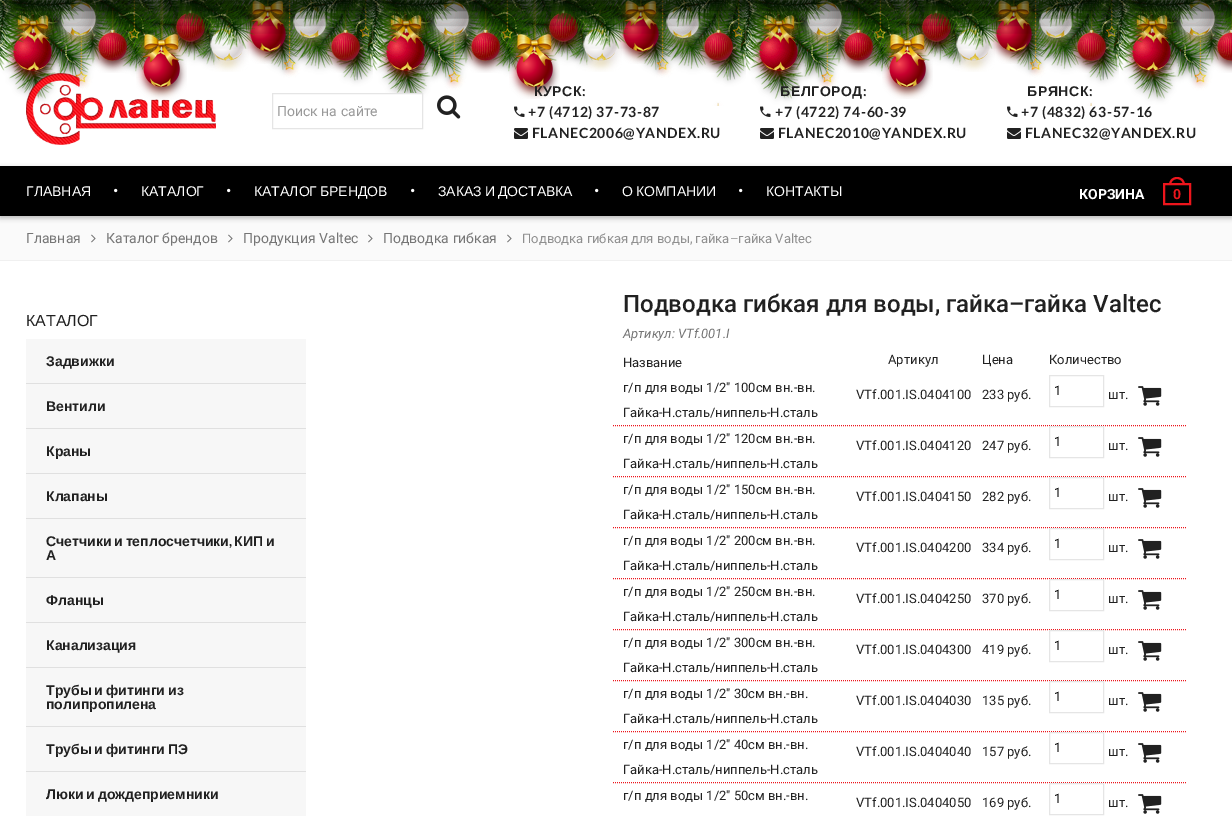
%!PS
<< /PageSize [1232 816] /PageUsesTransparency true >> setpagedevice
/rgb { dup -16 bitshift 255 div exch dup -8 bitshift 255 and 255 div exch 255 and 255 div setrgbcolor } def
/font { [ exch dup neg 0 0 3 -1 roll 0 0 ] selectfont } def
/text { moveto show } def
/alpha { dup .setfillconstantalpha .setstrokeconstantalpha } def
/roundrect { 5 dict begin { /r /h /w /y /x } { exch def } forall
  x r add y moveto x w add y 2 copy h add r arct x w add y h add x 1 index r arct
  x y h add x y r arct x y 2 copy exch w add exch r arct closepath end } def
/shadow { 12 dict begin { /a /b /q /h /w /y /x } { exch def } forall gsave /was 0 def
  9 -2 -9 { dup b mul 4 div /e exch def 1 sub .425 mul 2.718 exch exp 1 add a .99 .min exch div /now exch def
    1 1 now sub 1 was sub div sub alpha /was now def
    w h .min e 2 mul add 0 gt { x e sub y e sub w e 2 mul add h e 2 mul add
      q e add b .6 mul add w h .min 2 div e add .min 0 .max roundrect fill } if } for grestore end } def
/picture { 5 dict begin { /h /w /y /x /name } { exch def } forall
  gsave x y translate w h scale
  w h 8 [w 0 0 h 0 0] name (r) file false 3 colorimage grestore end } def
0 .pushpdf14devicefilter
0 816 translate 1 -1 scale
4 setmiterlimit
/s1 { /Roboto-Regular 14 font 16#999999 rgb } def
/s2 { /LiberationSans-Regular 14 font 16#FFFFFF rgb } def
/s3 { /Roboto-Bold 14 font 16#FFFFFF rgb } def
/s4 { /Roboto-Bold 14 font 16#ED151C rgb } def
/s5 { /Roboto-Regular 14 font 16#757575 rgb } def
/s6 { /Roboto-Regular 13 font 16#8F8F8F rgb } def
/s7 { /LiberationSans-Regular 16 font 16#212121 rgb } def
/s8 { /LiberationSans-Bold 14 font 16#212121 rgb } def
/s9 { /Lato-Bold 14 font 16#212121 rgb } def
/s10 { /Roboto-Medium 24 font 16#212121 rgb } def
/s11 { /Roboto-Italic 13 font 16#757575 rgb } def
/s12 { /Roboto-Regular 13 font 16#212121 rgb } def
/s13 { /Roboto-Regular 13 font 16#000000 rgb } def
16#FFFFFF rgb
0 0 1232 816 rectfill
(pic1.raw) 0 0 1232 106 picture
(pic3.raw) 6 0 52 82 picture
(pic2.raw) 0 0 25 71 picture
(pic5.raw) 54 0 49 47 picture
(pic4.raw) 25 0 61 27 picture
(pic6.raw) 136 0 51 99 picture
(pic7.raw) 170 0 41 54 picture
(pic13.raw) 204 6 45 66 picture
(pic8.raw) 177 0 28 31 picture
(pic10.raw) 243 0 49 64 picture
(pic9.raw) 205 0 50 50 picture
(pic11.raw) 287 0 46 49 picture
(pic12.raw) 91 9 42 64 picture
(pic16.raw) 325 10 41 63 picture
(pic14.raw) 289 0 78 28 picture
(pic15.raw) 367 0 6 69 picture
(pic3.raw) 379 0 52 82 picture
(pic2.raw) 373 0 25 71 picture
(pic5.raw) 427 0 49 47 picture
(pic4.raw) 398 0 61 27 picture
(pic6.raw) 509 0 51 99 picture
(pic7.raw) 543 0 41 54 picture
(pic13.raw) 577 6 45 66 picture
(pic8.raw) 550 0 28 31 picture
(pic10.raw) 616 0 49 64 picture
(pic9.raw) 578 0 50 50 picture
(pic11.raw) 660 0 46 49 picture
(pic12.raw) 464 9 42 64 picture
(pic16.raw) 698 10 41 63 picture
(pic14.raw) 662 0 78 28 picture
(pic15.raw) 740 0 6 69 picture
(pic3.raw) 752 0 52 82 picture
(pic2.raw) 746 0 25 71 picture
(pic5.raw) 800 0 49 47 picture
(pic4.raw) 771 0 61 27 picture
(pic6.raw) 882 0 51 99 picture
(pic7.raw) 916 0 41 54 picture
(pic13.raw) 950 6 45 66 picture
(pic8.raw) 923 0 28 31 picture
(pic10.raw) 989 0 49 64 picture
(pic9.raw) 951 0 50 50 picture
(pic11.raw) 1033 0 46 49 picture
(pic12.raw) 837 9 42 64 picture
(pic16.raw) 1071 10 41 63 picture
(pic14.raw) 1035 0 78 28 picture
(pic15.raw) 1113 0 6 69 picture
(pic3.raw) 1125 0 52 82 picture
(pic2.raw) 1119 0 25 71 picture
(pic5.raw) 1173 0 49 47 picture
(pic4.raw) 1144 0 61 27 picture
(pic17.raw) 1210 9 22 64 picture
16#000000 rgb
0 -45 1232 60 0 15 0.75 shadow
(pic18.raw) 26 73 190 72 picture
16#FFFFFF rgb
343 94 79 12 rectfill
16#E5E5E5 rgb
272.5 93.5 150 35 rectstroke
s1
(Поиск на сайте) 277 116 text
(pic19.raw) 437 95 24 24 picture
/LiberationSans-Bold 14 font
16#212121 rgb
534 96 moveto 0.6 0 (КУРСК) ashow
/Lato-Bold 14 font
582 96 moveto 0.6 0 (:) ashow
(pic20.raw) 514 106 11 11 picture
528 117 moveto 0.6 0 (+7 \(4712\) 37-73-87) ashow
(pic21.raw) 514 128 14 11 picture
532 138 moveto 0.6 0 (FLANEC2006@YANDEX.RU) ashow
/LiberationSans-Bold 14 font
780 96 moveto 0.6 0 (БЕЛГОРОД) ashow
/Lato-Bold 14 font
863 96 moveto 0.6 0 (:) ashow
(pic20.raw) 760 106 11 11 picture
775 117 moveto 0.6 0 (+7 \(4722\) 74-60-39) ashow
(pic21.raw) 760 128 14 11 picture
778 138 moveto 0.6 0 (FLANEC2010@YANDEX.RU) ashow
/LiberationSans-Bold 14 font
1027 96 moveto 0.6 0 (БРЯНСК) ashow
/Lato-Bold 14 font
1089 96 moveto 0.6 0 (:) ashow
(pic20.raw) 1007 106 11 11 picture
1021 117 moveto 0.6 0 (+7 \(4832\) 63-57-16) ashow
(pic21.raw) 1007 128 14 11 picture
1025 138 moveto 0.6 0 (FLANEC32@YANDEX.RU) ashow
16#FAFAFA rgb
0 216 1232 44 rectfill
16#000000 rgb
0 168 1232 50 0 2.5 0.26 shadow
0 166 1232 50 rectfill
s2
(ГЛАВНАЯ) 26 196 text
(pic22.raw) 114 188 4 5 picture
(КАТАЛОГ) 141 196 text
(pic22.raw) 227 188 4 5 picture
254 196 moveto -1 0 32 (КАТАЛОГ БРЕНДОВ) widthshow
(pic22.raw) 411 188 4 5 picture
438 196 moveto -1 0 32 (ЗАКАЗ И ДОСТАВКА) widthshow
(pic22.raw) 595 188 4 5 picture
622 196 moveto -1 0 32 (О КОМПАНИИ) widthshow
(pic22.raw) 739 188 4 5 picture
(КОНТАКТЫ) 766 196 text
s3
(КОРЗИНА) 1079 199 text
16#ED151C rgb
1177 177 moveto 1181.5 177 1185 180.5 1185 185 curveto 1169 185 lineto 1169 180.5 1172.5 177 1177 177 curveto closepath 1177 179 moveto 1180.5 179 1183 181.5 1183 185 curveto 1171 185 lineto 1171 181.5 1173.5 179 1177 179 curveto closepath eofill
2 setlinewidth
1164 184 26 20 rectstroke
(0) 1173 199 text
gsave
0 216 1232 45 rectclip
16#F0F0F0 rgb
-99 117 moveto 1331 117 lineto 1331 360 lineto -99 360 lineto closepath 0 213 moveto 1232 213 lineto 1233 214 lineto 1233 259 lineto 1232 260 lineto 0 260 lineto -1 259 lineto -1 214 lineto closepath eofill
grestore
s5
(Главная) 26 243 text
(pic23.raw) 91 234 5 9 picture
(Каталог брендов) 106 243 text
(pic23.raw) 228 234 5 9 picture
(Продукция Valtec) 243 243 text
(pic23.raw) 368 234 5 9 picture
(Подводка гибкая) 383 243 text
(pic23.raw) 507 234 5 9 picture
s6
(Подводка гибкая для воды, гайка–гайка Valtec) 522 243 text
s7
(КАТАЛОГ) 26 326 text
16#E0E0E0 rgb
26 383 280 1 rectfill
16#F7F7F7 rgb
26 339 280 44 rectfill
s8
(Задвижки) 46 366 text
16#E0E0E0 rgb
26 428 280 1 rectfill
16#F7F7F7 rgb
26 384 280 44 rectfill
s8
(Вентили) 46 411 text
16#E0E0E0 rgb
26 473 280 1 rectfill
16#F7F7F7 rgb
26 429 280 44 rectfill
s8
(Краны) 46 456 text
16#E0E0E0 rgb
26 518 280 1 rectfill
16#F7F7F7 rgb
26 474 280 44 rectfill
s8
(Клапаны) 46 501 text
16#E0E0E0 rgb
26 577 280 1 rectfill
16#F7F7F7 rgb
26 519 280 58 rectfill
16#212121 rgb
46 546 moveto -1 0 32 (Счетчики и теплосчетчики) widthshow
s9
(,) 229 546 text
/LiberationSans-Bold 14 font
234 546 moveto -1 0 32 (КИП и) widthshow
(А) 46 560 text
16#E0E0E0 rgb
26 622 280 1 rectfill
16#F7F7F7 rgb
26 578 280 44 rectfill
s8
(Фланцы) 46 605 text
16#E0E0E0 rgb
26 667 280 1 rectfill
16#F7F7F7 rgb
26 623 280 44 rectfill
s8
(Канализация) 46 650 text
16#E0E0E0 rgb
26 726 280 1 rectfill
16#F7F7F7 rgb
26 668 280 58 rectfill
16#212121 rgb
46 695 moveto -1 0 32 (Трубы и фитинги из) widthshow
(полипропилена) 46 709 text
16#E0E0E0 rgb
26 771 280 1 rectfill
16#F7F7F7 rgb
26 727 280 44 rectfill
16#212121 rgb
46 754 moveto -1 0 32 (Трубы и фитинги ПЭ) widthshow
16#F7F7F7 rgb
26 772 280 44 rectfill
16#212121 rgb
46 799 moveto -1 0 32 (Люки и дождеприемники) widthshow
s10
(Подводка гибкая для воды, гайка–гайка Valtec) 623 312 text
s11
(Артикул: VTf.001.I) 623 338 text
s12
(Название) 623 367 text
(Артикул) 888 364 text
(Цена) 982 364 text
(Количество) 1049 364 text
16#ED151C rgb
1 setlinewidth
[1 1] 0 setdash
613 425.5 moveto 1186 425.5 lineto stroke
s12
(г/п для воды 1/2" 100см вн.-вн.) 623 392 text
(Гайка-Н.сталь/ниппель-Н.сталь) 623 417 text
(VTf.001.IS.0404100) 856 399 text
(233 руб.) 982 399 text
16#E5E5E5 rgb
[] 0 setdash
1049.5 375.5 54 31 rectstroke
s13
(1) 1054 395 text
s12
(шт.) 1108 399 text
(pic24.raw) 1138 386 24 20 picture
16#ED151C rgb
[1 1] 0 setdash
613 476.5 moveto 1186 476.5 lineto stroke
s12
(г/п для воды 1/2" 120см вн.-вн.) 623 443 text
(Гайка-Н.сталь/ниппель-Н.сталь) 623 468 text
(VTf.001.IS.0404120) 856 450 text
(247 руб.) 982 450 text
16#E5E5E5 rgb
[] 0 setdash
1049.5 426.5 54 31 rectstroke
s13
(1) 1054 446 text
s12
(шт.) 1108 450 text
(pic24.raw) 1138 437 24 20 picture
16#ED151C rgb
[1 1] 0 setdash
613 527.5 moveto 1186 527.5 lineto stroke
s12
(г/п для воды 1/2" 150см вн.-вн.) 623 494 text
(Гайка-Н.сталь/ниппель-Н.сталь) 623 519 text
(VTf.001.IS.0404150) 856 501 text
(282 руб.) 982 501 text
16#E5E5E5 rgb
[] 0 setdash
1049.5 477.5 54 31 rectstroke
s13
(1) 1054 497 text
s12
(шт.) 1108 501 text
(pic24.raw) 1138 488 24 20 picture
16#ED151C rgb
[1 1] 0 setdash
613 578.5 moveto 1186 578.5 lineto stroke
s12
(г/п для воды 1/2" 200см вн.-вн.) 623 545 text
(Гайка-Н.сталь/ниппель-Н.сталь) 623 570 text
(VTf.001.IS.0404200) 856 552 text
(334 руб.) 982 552 text
16#E5E5E5 rgb
[] 0 setdash
1049.5 528.5 54 31 rectstroke
s13
(1) 1054 548 text
s12
(шт.) 1108 552 text
(pic24.raw) 1138 539 24 20 picture
16#ED151C rgb
[1 1] 0 setdash
613 629.5 moveto 1186 629.5 lineto stroke
s12
(г/п для воды 1/2" 250см вн.-вн.) 623 596 text
(Гайка-Н.сталь/ниппель-Н.сталь) 623 621 text
(VTf.001.IS.0404250) 856 603 text
(370 руб.) 982 603 text
16#E5E5E5 rgb
[] 0 setdash
1049.5 579.5 54 31 rectstroke
s13
(1) 1054 599 text
s12
(шт.) 1108 603 text
(pic24.raw) 1138 590 24 20 picture
16#ED151C rgb
[1 1] 0 setdash
613 680.5 moveto 1186 680.5 lineto stroke
s12
(г/п для воды 1/2" 300см вн.-вн.) 623 647 text
(Гайка-Н.сталь/ниппель-Н.сталь) 623 672 text
(VTf.001.IS.0404300) 856 654 text
(419 руб.) 982 654 text
16#E5E5E5 rgb
[] 0 setdash
1049.5 630.5 54 31 rectstroke
s13
(1) 1054 650 text
s12
(шт.) 1108 654 text
(pic24.raw) 1138 641 24 20 picture
16#ED151C rgb
[1 1] 0 setdash
613 731.5 moveto 1186 731.5 lineto stroke
s12
(г/п для воды 1/2" 30см вн.-вн.) 623 698 text
(Гайка-Н.сталь/ниппель-Н.сталь) 623 723 text
(VTf.001.IS.0404030) 856 705 text
(135 руб.) 982 705 text
16#E5E5E5 rgb
[] 0 setdash
1049.5 681.5 54 31 rectstroke
s13
(1) 1054 701 text
s12
(шт.) 1108 705 text
(pic24.raw) 1138 692 24 20 picture
16#ED151C rgb
[1 1] 0 setdash
613 782.5 moveto 1186 782.5 lineto stroke
s12
(г/п для воды 1/2" 40см вн.-вн.) 623 749 text
(Гайка-Н.сталь/ниппель-Н.сталь) 623 774 text
(VTf.001.IS.0404040) 856 756 text
(157 руб.) 982 756 text
16#E5E5E5 rgb
[] 0 setdash
1049.5 732.5 54 31 rectstroke
s13
(1) 1054 752 text
s12
(шт.) 1108 756 text
(pic24.raw) 1138 743 24 20 picture
(г/п для воды 1/2" 50см вн.-вн.) 623 800 text
(VTf.001.IS.0404050) 856 807 text
(169 руб.) 982 807 text
16#E5E5E5 rgb
1049.5 783.5 54 31 rectstroke
s13
(1) 1054 803 text
s12
(шт.) 1108 807 text
(pic24.raw) 1138 794 24 20 picture
.poppdf14devicefilter showpage
